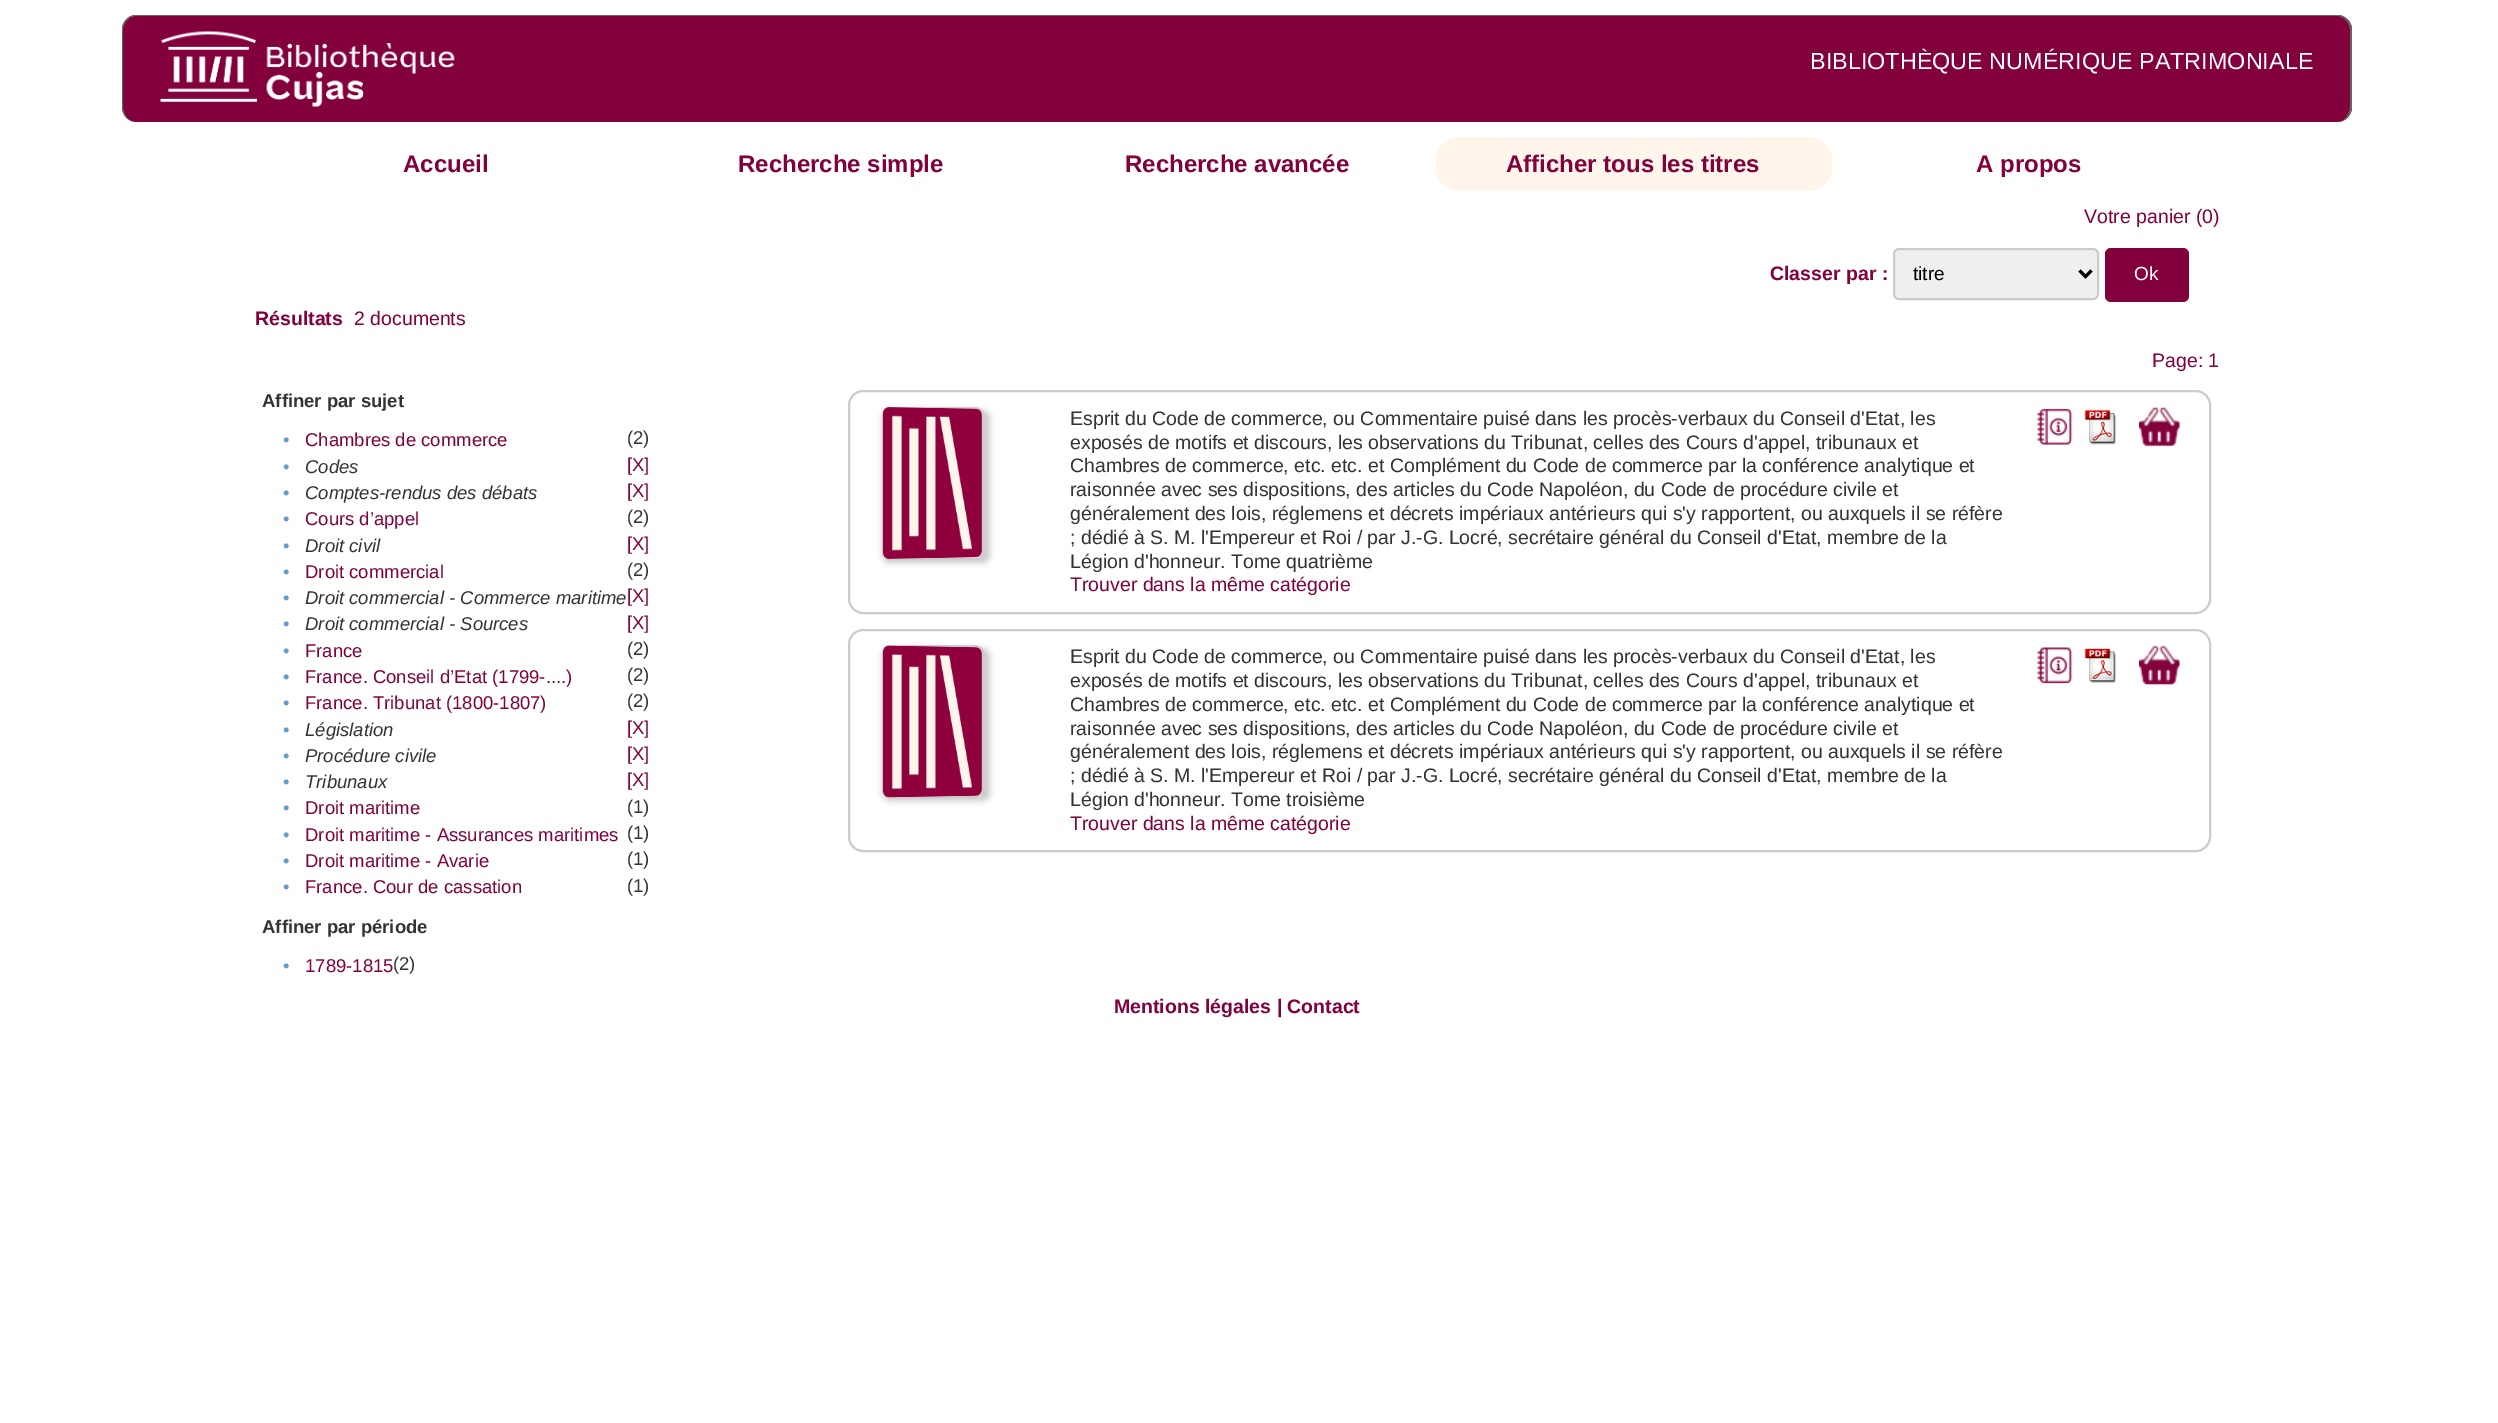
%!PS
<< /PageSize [2498 1423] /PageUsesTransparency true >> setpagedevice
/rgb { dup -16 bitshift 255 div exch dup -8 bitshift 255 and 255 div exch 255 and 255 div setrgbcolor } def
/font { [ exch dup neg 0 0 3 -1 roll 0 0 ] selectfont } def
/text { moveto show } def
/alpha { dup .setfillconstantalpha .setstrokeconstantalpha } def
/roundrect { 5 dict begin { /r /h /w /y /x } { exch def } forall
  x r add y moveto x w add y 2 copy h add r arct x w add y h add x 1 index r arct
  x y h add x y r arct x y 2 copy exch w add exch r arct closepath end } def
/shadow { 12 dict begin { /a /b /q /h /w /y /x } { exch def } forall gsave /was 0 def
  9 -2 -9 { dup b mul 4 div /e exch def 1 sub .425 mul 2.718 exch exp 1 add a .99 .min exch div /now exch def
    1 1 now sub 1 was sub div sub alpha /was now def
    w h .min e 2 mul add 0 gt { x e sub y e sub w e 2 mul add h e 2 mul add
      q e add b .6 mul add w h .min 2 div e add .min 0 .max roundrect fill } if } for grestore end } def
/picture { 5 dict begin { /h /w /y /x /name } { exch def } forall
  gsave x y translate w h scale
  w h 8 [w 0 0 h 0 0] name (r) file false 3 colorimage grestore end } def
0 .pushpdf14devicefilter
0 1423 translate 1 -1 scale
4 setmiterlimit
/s1 { /LiberationSans-Regular 23.4 font 16#FFFFFF rgb } def
/s2 { /LiberationSans-Bold 24 font 16#82003C rgb } def
/s3 { /LiberationSans-Regular 19.5 font 16#82003C rgb } def
/s4 { /LiberationSans-Bold 19.5 font 16#82003C rgb } def
/s5 { /LiberationSans-Regular 19 font 16#000000 rgb } def
/s6 { /LiberationSans-Regular 19 font 16#FFFFFF rgb } def
/s7 { /LiberationSans-Bold 18.5 font 16#333333 rgb } def
/s8 { /LiberationSans-Regular 18.5 font 16#6699CC rgb } def
/s9 { /LiberationSans-Regular 18.5 font 16#82003C rgb } def
/s10 { /LiberationSans-Regular 18.5 font 16#333333 rgb } def
/s11 { /LiberationSans-Italic 18.5 font 16#333333 rgb } def
/s12 { /LiberationSans-Regular 19.5 font 16#333333 rgb } def
16#FFFFFF rgb
0 0 2498 1423 rectfill
16#82003C rgb
122 15 2230 107 15 roundrect fill
16#666666 rgb
136 15 moveto 2337 15 lineto 2345 15 2352 22 2352 30 curveto 2352 106 lineto 2352 115 2345 122 2337 122 curveto 136 122 lineto 128 122 122 115 122 106 curveto 122 30 lineto 122 22 128 15 136 15 curveto closepath 136 16 moveto 2337 16 lineto 2344 16 2350 23 2350 30 curveto 2350 106 lineto 2350 115 2344 122 2337 122 curveto 136 122 lineto 129 122 123 115 123 106 curveto 123 30 lineto 123 23 129 16 136 16 curveto closepath eofill
(pic1.raw) 160 31 295 76 picture
s1
(BIBLIOTHÈQUE NUMÉRIQUE PATRIMONIALE) 1810 69 text
s2
(Accueil) 403 172 text
(Recherche simple) 738 172 text
(Recherche avancée) 1125 172 text
16#FFF5EB rgb
1436 137 396 54 23 roundrect fill
s2
(Afficher tous les titres) 1506 172 text
(A propos) 1976 172 text
s3
(Votre panier \(0\)) 2084 223 text
s4
(Classer par :) 1770 280 text
16#EFEFEF rgb
1894 249 204 50 5 roundrect gsave fill grestore
16#CCCCCC rgb
2 setlinewidth
stroke
16#000000 rgb
3 setlinewidth
2079.5 270.5 moveto 2085.5 276.5 lineto 2091.5 270.5 lineto stroke
s5
(titre) 1913 280 text
16#82003C rgb
2105 248 84 54 6 roundrect fill
s6
(Ok) 2134 280 text
s4
(Résultats) 255 325 text
s3
(2 documents) 354 325 text
(Page: 1) 2152 367 text
s7
(Affiner par sujet) 262 407 text
s8
(•) 283 446 text
s9
(Chambres de commerce) 305 446 text
s10
(\(2\)) 627 444 text
s8
(•) 283 473 text
s11
(Codes) 305 473 text
s9
([X]) 627 471 text
s8
(•) 283 499 text
s11
(Comptes-rendus des débats) 305 499 text
s9
([X]) 627 497 text
s8
(•) 283 525 text
s9
(Cours d’appel) 305 525 text
s10
(\(2\)) 627 523 text
s8
(•) 283 552 text
s11
(Droit civil) 305 552 text
s9
([X]) 627 550 text
s8
(•) 283 578 text
s9
(Droit commercial) 305 578 text
s10
(\(2\)) 627 576 text
s8
(•) 283 604 text
s11
(Droit commercial - Commerce maritime) 305 604 text
s9
([X]) 627 602 text
s8
(•) 283 630 text
s11
(Droit commercial - Sources) 305 630 text
s9
([X]) 627 629 text
s8
(•) 283 657 text
s9
(France) 305 657 text
s10
(\(2\)) 627 655 text
s8
(•) 283 683 text
s9
(France. Conseil d’Etat \(1799-....\)) 305 683 text
s10
(\(2\)) 627 681 text
s8
(•) 283 709 text
s9
(France. Tribunat \(1800-1807\)) 305 709 text
s10
(\(2\)) 627 707 text
s8
(•) 283 736 text
s11
(Législation) 305 736 text
s9
([X]) 627 734 text
s8
(•) 283 762 text
s11
(Procédure civile) 305 762 text
s9
([X]) 627 760 text
s8
(•) 283 788 text
s11
(Tribunaux) 305 788 text
s9
([X]) 627 786 text
s8
(•) 283 814 text
s9
(Droit maritime) 305 814 text
s10
(\(1\)) 627 813 text
s8
(•) 283 841 text
s9
(Droit maritime - Assurances maritimes) 305 841 text
s10
(\(1\)) 627 839 text
s8
(•) 283 867 text
s9
(Droit maritime - Avarie) 305 867 text
s10
(\(1\)) 627 865 text
s8
(•) 283 893 text
s9
(France. Cour de cassation) 305 893 text
s10
(\(1\)) 627 892 text
s7
(Affiner par période) 262 933 text
s8
(•) 283 972 text
s9
(1789-1815) 305 972 text
s10
(\(2\)) 393 970 text
16#CCCCCC rgb
2 setlinewidth
849 391 1361 222 14 roundrect stroke
16#000000 rgb
882 410 108 153 8 3 0.2 shadow
16#CCCCCC rgb
883 408 100 151 7 roundrect stroke
(pic2.raw) 883 407 99 152 picture
s12
(Esprit du Code de commerce, ou Commentaire puisé dans les procès-verbaux du Conseil d'Etat, les) 1070 425 text
(exposés de motifs et discours, les observations du Tribunat, celles des Cours d'appel, tribunaux et) 1070 449 text
(Chambres de commerce, etc. etc. et Complément du Code de commerce par la conférence analytique et) 1070 472 text
(raisonnée avec ses dispositions, des articles du Code Napoléon, du Code de procédure civile et) 1070 496 text
(généralement des lois, réglemens et décrets impériaux antérieurs qui s'y rapportent, ou auxquels il se réfère) 1070 520 text
(; dédié à S. M. l'Empereur et Roi / par J.-G. Locré, secrétaire général du Conseil d'Etat, membre de la) 1070 544 text
(Légion d'honneur. Tome quatrième) 1070 568 text
(pic3.raw) 2036 408 37 37 picture
(pic4.raw) 2084 409 32 36 picture
(pic5.raw) 2139 406 41 41 picture
s3
(Trouver dans la même catégorie) 1070 591 text
16#CCCCCC rgb
849 630 1361 221 14 roundrect stroke
16#000000 rgb
882 648 108 153 8 3 0.2 shadow
16#CCCCCC rgb
883 646 100 151 7 roundrect stroke
(pic6.raw) 883 645 99 153 picture
s12
(Esprit du Code de commerce, ou Commentaire puisé dans les procès-verbaux du Conseil d'Etat, les) 1070 663 text
(exposés de motifs et discours, les observations du Tribunat, celles des Cours d'appel, tribunaux et) 1070 687 text
(Chambres de commerce, etc. etc. et Complément du Code de commerce par la conférence analytique et) 1070 711 text
(raisonnée avec ses dispositions, des articles du Code Napoléon, du Code de procédure civile et) 1070 735 text
(généralement des lois, réglemens et décrets impériaux antérieurs qui s'y rapportent, ou auxquels il se réfère) 1070 758 text
(; dédié à S. M. l'Empereur et Roi / par J.-G. Locré, secrétaire général du Conseil d'Etat, membre de la) 1070 782 text
(Légion d'honneur. Tome troisième) 1070 806 text
(pic7.raw) 2036 647 37 37 picture
(pic8.raw) 2084 648 32 35 picture
(pic9.raw) 2139 645 41 41 picture
s3
(Trouver dans la même catégorie) 1070 830 text
s4
(Mentions légales | Contact) 1114 1013 text
.poppdf14devicefilter showpage
